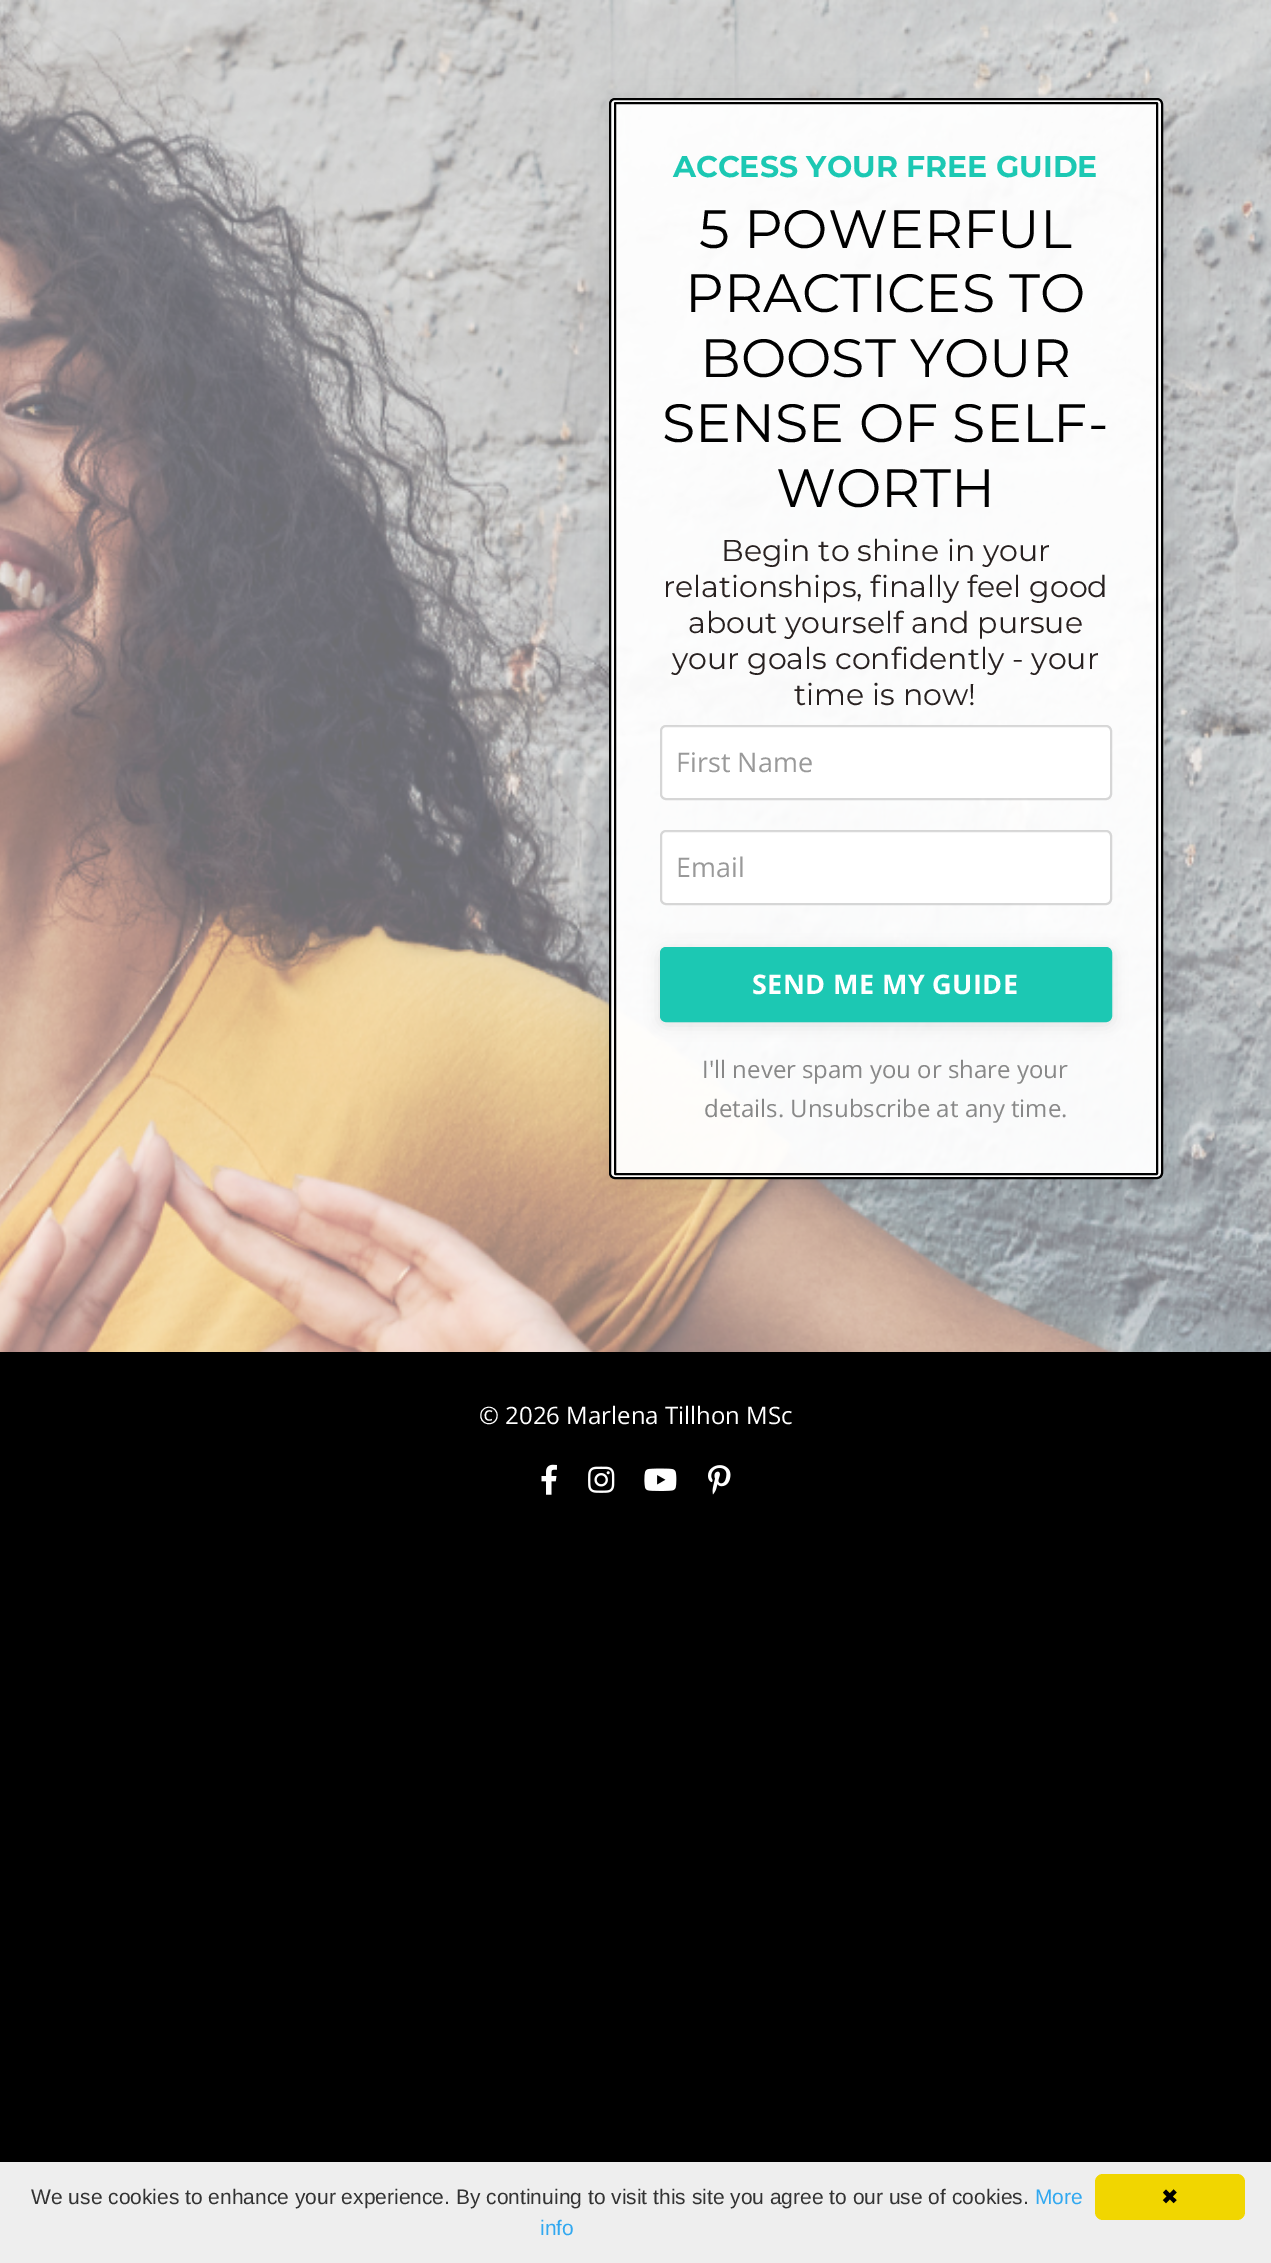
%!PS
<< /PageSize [1271 2263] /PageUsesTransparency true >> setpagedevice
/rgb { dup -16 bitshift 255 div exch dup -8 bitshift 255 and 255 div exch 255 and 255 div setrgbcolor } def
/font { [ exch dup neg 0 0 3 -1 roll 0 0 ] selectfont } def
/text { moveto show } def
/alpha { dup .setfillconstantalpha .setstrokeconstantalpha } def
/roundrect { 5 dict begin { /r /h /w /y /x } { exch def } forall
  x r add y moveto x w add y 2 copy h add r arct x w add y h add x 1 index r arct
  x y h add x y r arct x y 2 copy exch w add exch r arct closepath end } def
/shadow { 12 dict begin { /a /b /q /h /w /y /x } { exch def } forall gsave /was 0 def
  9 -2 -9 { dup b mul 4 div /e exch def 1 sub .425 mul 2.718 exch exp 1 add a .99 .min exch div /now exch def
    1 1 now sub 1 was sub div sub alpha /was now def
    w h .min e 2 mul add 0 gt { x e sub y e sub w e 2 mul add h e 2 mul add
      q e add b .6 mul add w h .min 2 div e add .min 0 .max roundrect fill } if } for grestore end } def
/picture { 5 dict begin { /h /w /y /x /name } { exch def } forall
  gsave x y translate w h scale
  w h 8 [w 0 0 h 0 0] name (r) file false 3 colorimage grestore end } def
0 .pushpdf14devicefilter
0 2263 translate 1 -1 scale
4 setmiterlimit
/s1 { /Montserrat-Bold 30 font 16#1CC8B3 rgb } def
/s2 { /Montserrat-Regular 54 font 16#000000 rgb } def
/s3 { /Montserrat-Regular 30 font 16#282120 rgb } def
/s4 { /OpenSans-Regular 27 font 16#999999 rgb } def
/s5 { /OpenSans-Regular 24 font 16#888888 rgb } def
/s6 { /OpenSans-Regular 24 font 16#FFFFFF rgb } def
/s7 { /LiberationSans-Regular 21 font 16#333333 rgb } def
/s8 { /LiberationSans-Regular 21 font 16#31A8F0 rgb } def
/s9 { /DejaVuSans-Regular 21 font 16#000000 rgb } def
16#FFFFFF rgb
0 0 1271 2263 rectfill
(pic1.raw) 0 0 1271 1352 picture
gsave
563 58 moveto 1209 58 lineto 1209 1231 lineto 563 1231 lineto closepath 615 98 moveto 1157 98 lineto 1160.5 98 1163 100.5 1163 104 curveto 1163 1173 lineto 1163 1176.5 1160.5 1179 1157 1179 curveto 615 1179 lineto 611.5 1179 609 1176.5 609 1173 curveto 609 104 lineto 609 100.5 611.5 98 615 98 curveto closepath eoclip newpath
16#000000 rgb
609 104 554 1081 6 15 0.07 shadow
grestore
0.95 alpha
610 99 552 1079 5 roundrect fill
1 alpha
16#000000 rgb
2 setlinewidth
610 99 552 1079 5 roundrect stroke
615 103 542 1071 0.5 roundrect stroke
s1
(ACCESS YOUR FREE GUIDE) 673 177 text
s2
(5 POWERFUL) 699 248 text
(PRACTICES TO) 685 312 text
(BOOST YOUR) 700 377 text
(SENSE OF SELF-) 662 442 text
(WORTH) 776 507 text
s3
(Begin to shine in your) 721 561 text
(relationships, finally feel good) 663 597 text
(about yourself and pursue) 688 633 text
(your goals confidently - your) 672 669 text
(time is now!) 794 705 text
16#FFFFFF rgb
662 726 448 72 5 roundrect fill
0.15 alpha
16#000000 rgb
661 726 450 73 5 roundrect stroke
1 alpha
s4
(First Name) 676 772 text
16#FFFFFF rgb
662 831 448 72 5 roundrect fill
0.15 alpha
16#000000 rgb
661 831 450 73 5 roundrect stroke
1 alpha
s4
(Email) 676 877 text
16#000000 rgb
660 950 452 75 6 7.5 0.1 shadow
16#1CC8B3 rgb
661.5 948.5 449 72 4.5 roundrect gsave fill grestore
3 setlinewidth
stroke
/OpenSans-Bold 27 font
16#FFFFFF rgb
752 994 moveto 0.4 0 (SEND ME MY GUIDE) ashow
s5
(I'll never spam you or share your) 702 1078 text
(details. Unsubscribe at any time.) 704 1117 text
16#000000 rgb
0 1352 1271 810 rectfill
s6
(© 2026 Marlena Tillhon MSc) 479 1424 text
(pic2.raw) 541 1464 16 31 picture
(pic3.raw) 588 1466 27 27 picture
(pic4.raw) 644 1468 33 23 picture
(pic5.raw) 708 1465 23 30 picture
16#EEEEEE rgb
0 2162 1271 101 rectfill
s7
(We use cookies to enhance your experience. By continuing to visit this site you agree to our use of cookies.) 31 2204 text
s8
(More) 1035 2204 text
(info) 540 2235 text
16#F1D600 rgb
1095 2174 150 46 8 roundrect fill
s9
(✖) 1161 2204 text
.poppdf14devicefilter showpage
